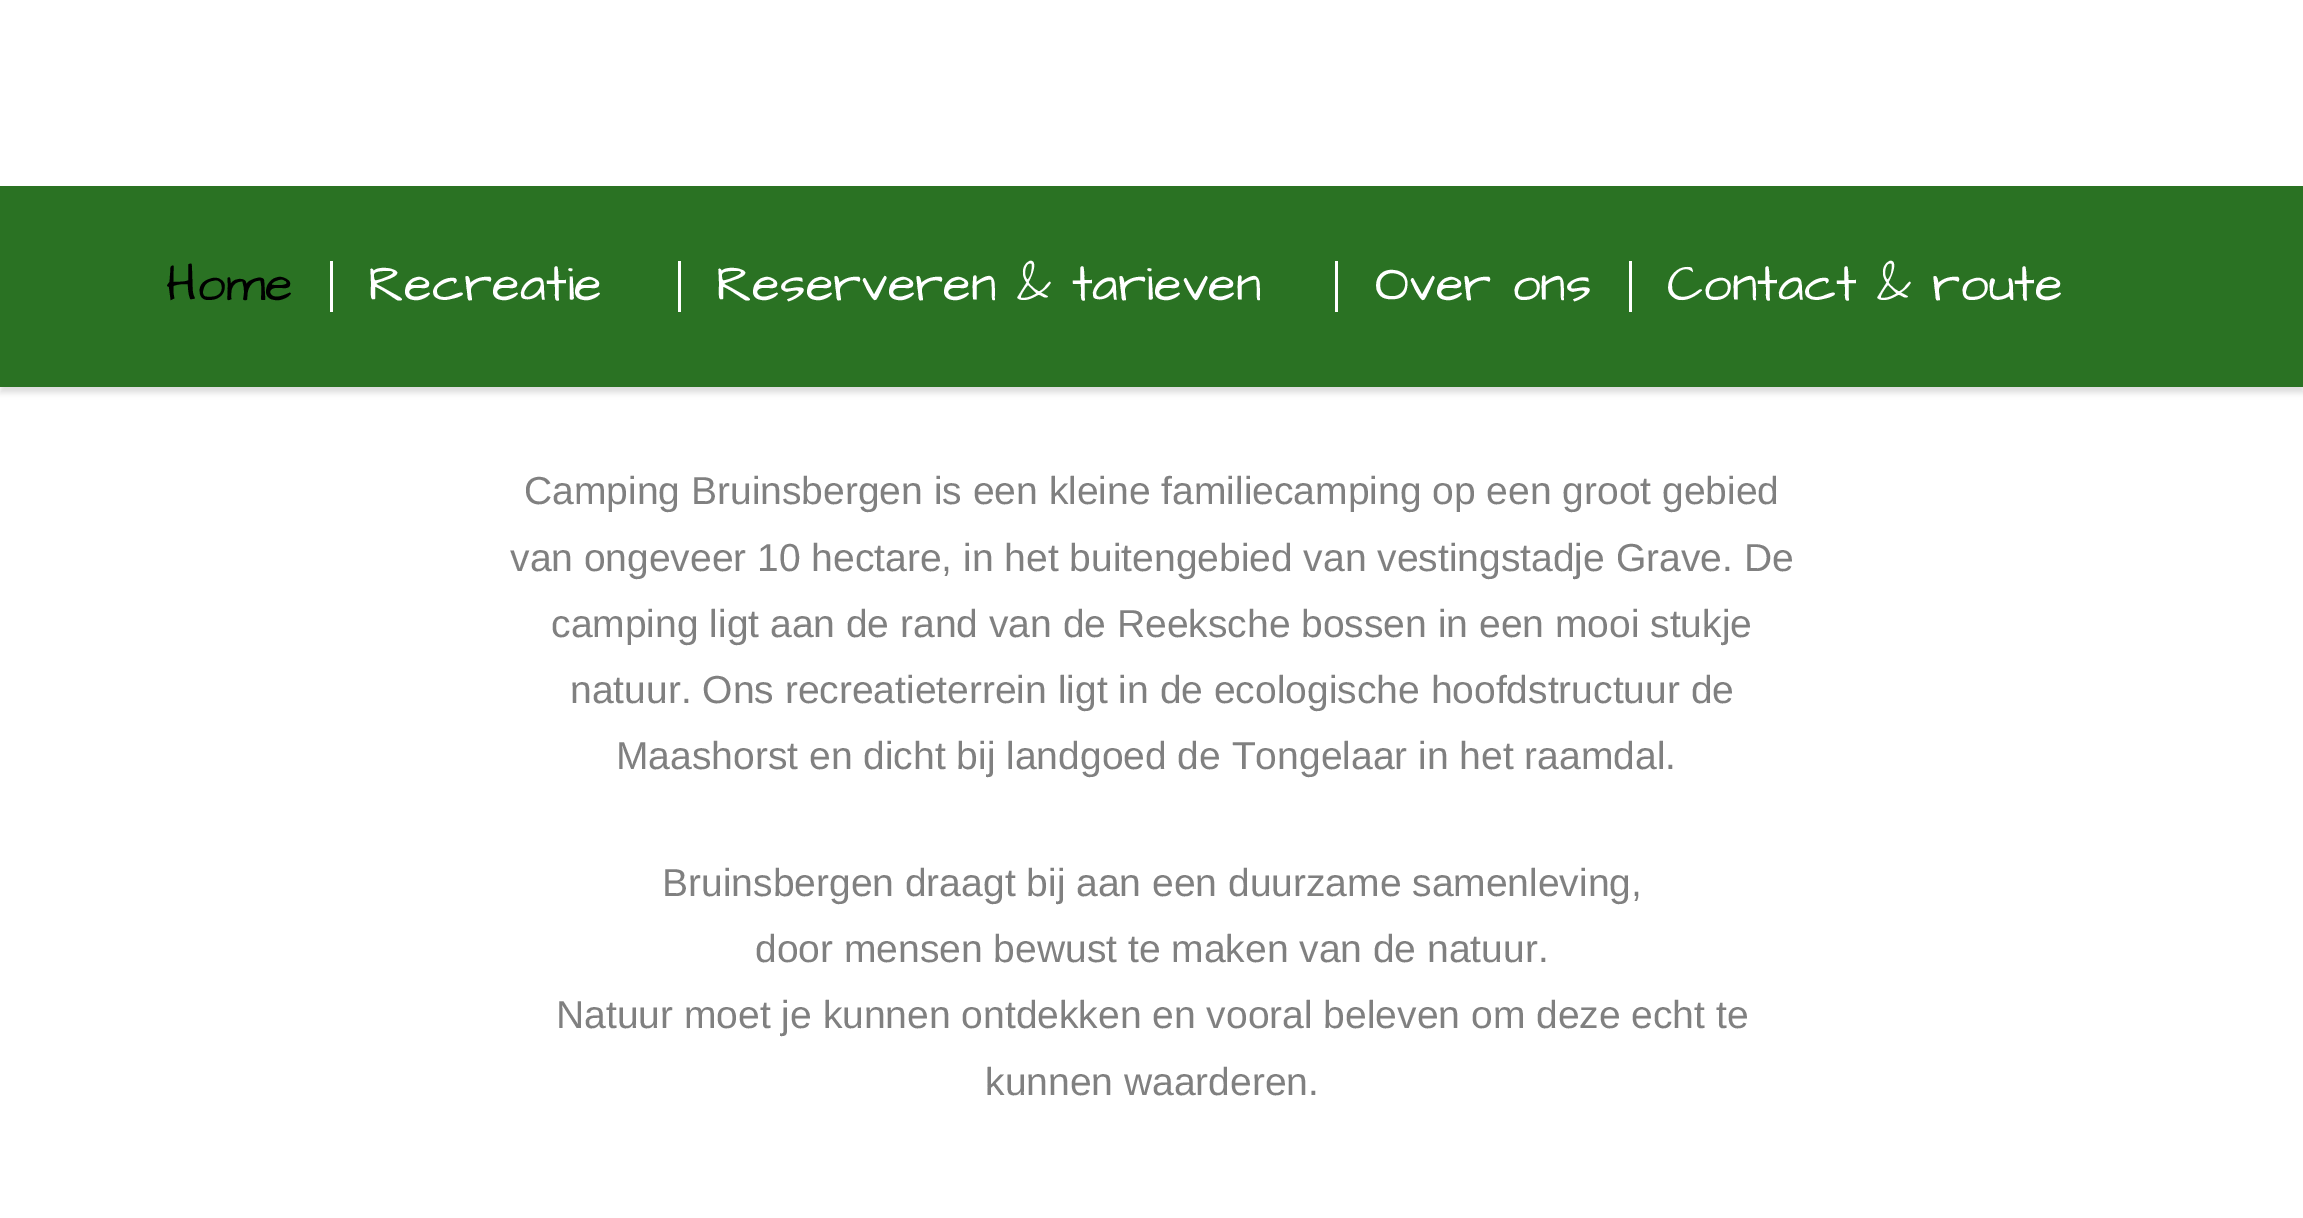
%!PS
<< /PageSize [2303 1218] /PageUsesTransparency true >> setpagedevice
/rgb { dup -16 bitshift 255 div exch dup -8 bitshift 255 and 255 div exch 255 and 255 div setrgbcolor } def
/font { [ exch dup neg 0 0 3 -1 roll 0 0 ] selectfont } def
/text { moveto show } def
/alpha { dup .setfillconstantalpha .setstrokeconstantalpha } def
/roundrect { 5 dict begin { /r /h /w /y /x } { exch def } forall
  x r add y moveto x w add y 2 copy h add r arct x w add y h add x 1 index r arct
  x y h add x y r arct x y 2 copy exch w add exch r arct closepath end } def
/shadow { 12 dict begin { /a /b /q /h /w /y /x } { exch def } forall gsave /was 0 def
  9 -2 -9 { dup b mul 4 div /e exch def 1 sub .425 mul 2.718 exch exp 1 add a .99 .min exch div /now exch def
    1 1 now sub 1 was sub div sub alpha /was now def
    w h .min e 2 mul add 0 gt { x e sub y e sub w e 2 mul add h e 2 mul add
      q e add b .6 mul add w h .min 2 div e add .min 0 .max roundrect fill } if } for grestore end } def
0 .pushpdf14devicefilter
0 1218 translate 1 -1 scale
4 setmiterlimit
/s1 { /ArchitectsDaughter-Regular 51 font 16#000000 rgb } def
/s2 { /ArchitectsDaughter-Regular 51 font 16#FFFFFF rgb } def
/s3 { /LiberationSans-Regular 39 font 16#808080 rgb } def
16#FFFFFF rgb
0 0 2303 1218 rectfill
16#000000 rgb
0 192 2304 201 0 3 0.12 shadow
16#2A7223 rgb
0 186 2303 201 rectfill
s1
(Home) 166 300 text
16#FFFFFF rgb
330 261 3 51 rectfill
(Recreatie) 368 300 text
678 261 3 51 rectfill
(Reserveren & tarieven) 716 300 text
1335 261 3 51 rectfill
(Over ons) 1375 300 text
1629 261 3 51 rectfill
(Contact & route) 1667 300 text
s3
(Camping Bruinsbergen is een kleine familiecamping op een groot gebied) 524 504 text
(van ongeveer 10 hectare, in het buitengebied van vestingstadje Grave. De) 510 571 text
(camping ligt aan de rand van de Reeksche bossen in een mooi stukje) 551 637 text
(natuur. Ons recreatieterrein ligt in de ecologische hoofdstructuur de) 570 703 text
(Maashorst en dicht bij landgoed de Tongelaar in het raamdal.) 616 769 text
(Bruinsbergen draagt bij aan een duurzame samenleving,) 662 896 text
(door mensen bewust te maken van de natuur.) 755 962 text
(Natuur moet je kunnen ontdekken en vooral beleven om deze echt te) 556 1028 text
(kunnen waarderen.) 985 1095 text
.poppdf14devicefilter showpage
